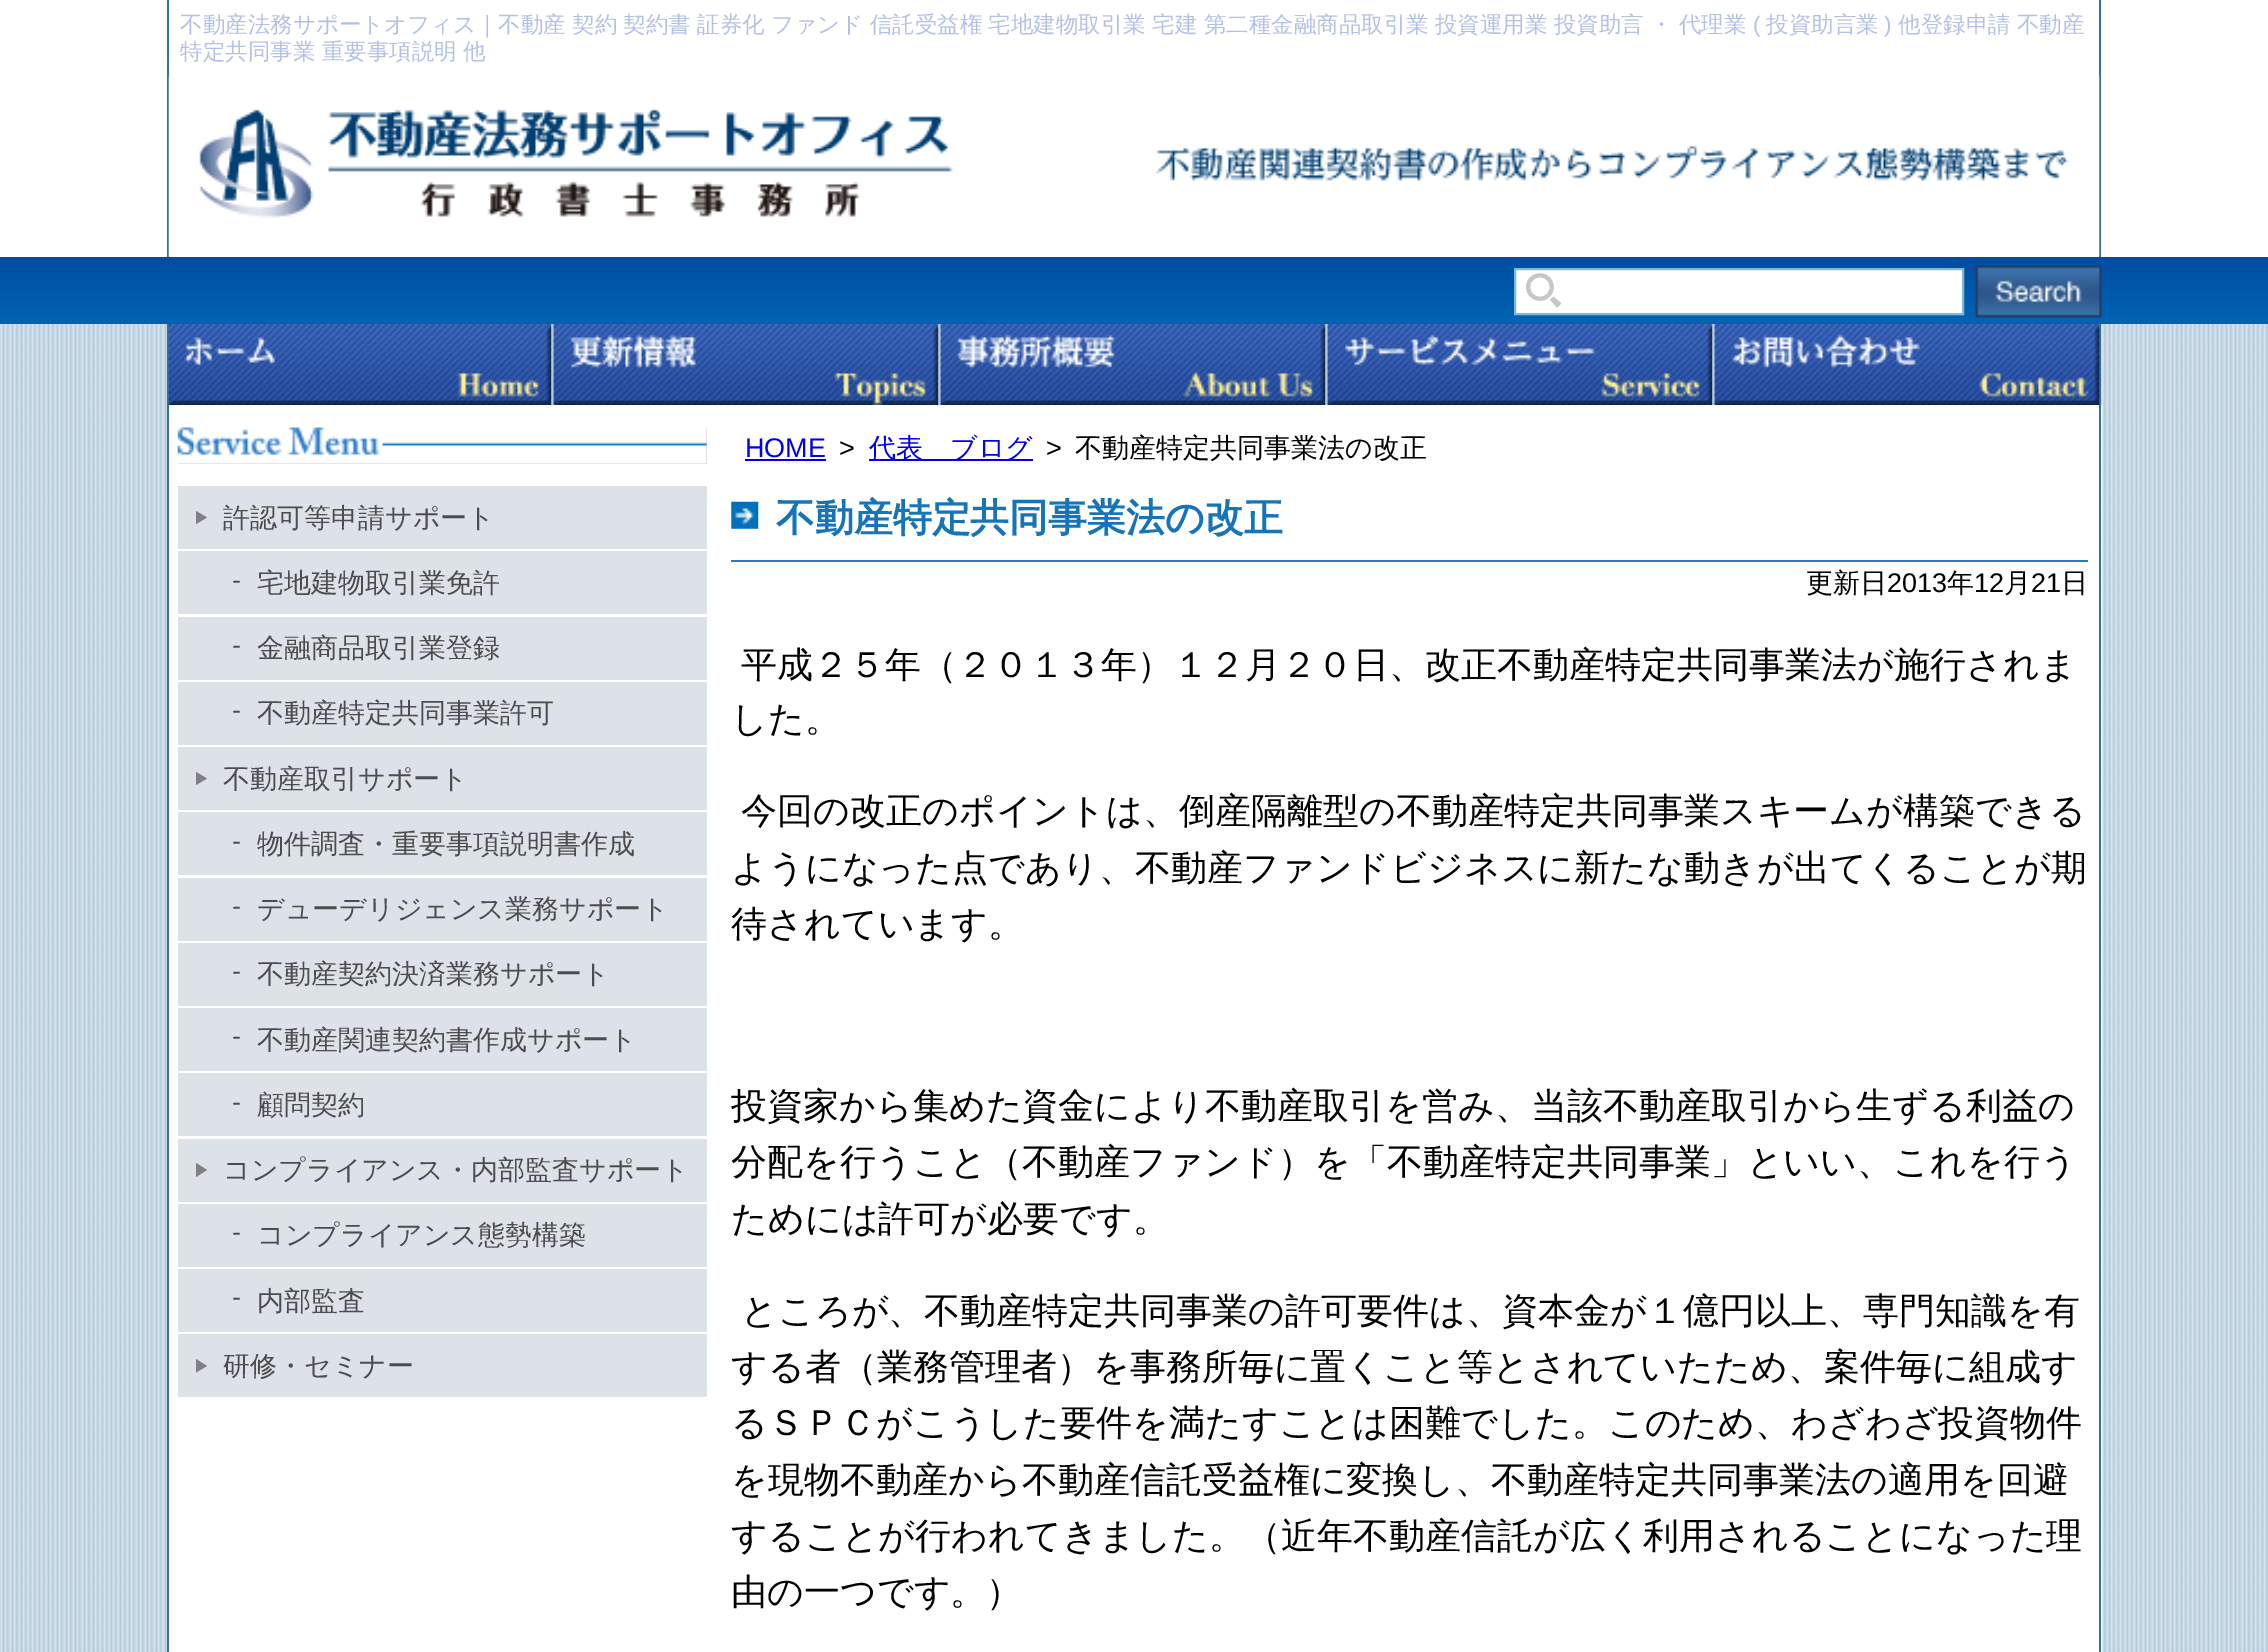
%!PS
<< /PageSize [2268 1652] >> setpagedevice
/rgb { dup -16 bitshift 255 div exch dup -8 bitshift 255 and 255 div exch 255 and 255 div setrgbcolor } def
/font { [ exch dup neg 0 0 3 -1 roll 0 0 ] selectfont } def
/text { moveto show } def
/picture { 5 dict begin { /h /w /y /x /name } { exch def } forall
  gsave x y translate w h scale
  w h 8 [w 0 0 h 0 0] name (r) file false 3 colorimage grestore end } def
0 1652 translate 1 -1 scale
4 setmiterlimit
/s1 { /LiberationSans-Regular 22.5 font 16#B3C1E7 rgb } def
/s2 { /WenQuanYiZenHei-Medium 22.5 font 16#B3C1E7 rgb } def
/s3 { /WenQuanYiZenHei-Medium 27 font 16#4C4C4C rgb } def
/s4 { /LiberationSans-Regular 27 font 16#4C4C4C rgb } def
/s5 { /LiberationSans-Regular 27 font 16#0000EE rgb } def
/s6 { /LiberationSans-Regular 27 font 16#000000 rgb } def
/s7 { /WenQuanYiZenHei-Medium 27 font 16#0000EE rgb } def
/s8 { /WenQuanYiZenHei-Medium 27 font 16#000000 rgb } def
/s9 { /WenQuanYiZenHei-Bold 38.9 font 16#1674B8 rgb } def
/s10 { /WenQuanYiZenHei-Medium 36 font 16#000000 rgb } def
16#FFFFFF rgb
0 0 2268 1652 rectfill
16#367294 rgb
2099 0 2 257 rectfill
167 0 2 257 rectfill
/WenQuanYiZenHei-Medium 22.5 font
16#B3C1E7 rgb
180 32 moveto -0.4 0 32 (不動産法務サポートオフィス｜不動産 契約 契約書 証券化 ファンド 信託受益権 宅地建物取引業 宅建 第二種金融商品取引業 投資運用業 投資助言 ・ 代理業) widthshow
s1
(\() 1753 32 text
s2
(投資助言業) 1766 32 text
s1
(\)) 1884 32 text
/WenQuanYiZenHei-Medium 22.5 font
1898 32 moveto -0.4 0 32 (他登録申請 不動産) widthshow
(特定共同事業 重要事項説明 他) 180 59 text
(pic1.raw) 168 76 1932 181 picture
gsave 0 257 moveto 2268 257 lineto 2268 324 lineto 0 324 lineto closepath clip newpath
<< /ShadingType 2 /ColorSpace /DeviceRGB /Coords [1134 256 1134 324] /Extend [true true] /Function << /FunctionType 2 /Domain [0 1] /C0 [0 0.302 0.631] /C1 [0 0.392 0.698] /N 1 >> >> shfill grestore
16#FFFFFF rgb
1516 270 446 43 rectfill
(pic2.raw) 1526 273 35 35 picture
16#7FB8DD rgb
2 setlinewidth
1515 269 448 45 rectstroke
(pic3.raw) 1975 265 127 53 picture
(pic4.raw) 0 324 2268 81 picture
16#367294 rgb
2099 324 2 81 rectfill
167 324 2 81 rectfill
(pic5.raw) 168 324 384 81 picture
(pic6.raw) 553 324 386 81 picture
(pic7.raw) 940 324 386 81 picture
(pic8.raw) 1327 324 386 81 picture
(pic9.raw) 1714 324 386 81 picture
(pic10.raw) 0 405 2268 1247 picture
16#FFFFFF rgb
169 405 1933 1247 rectfill
16#367294 rgb
2099 405 2 1247 rectfill
167 405 2 1247 rectfill
16#C2CDD6 rgb
178 428 529 36 rectfill
(pic11.raw) 177 427 530 37 picture
16#DDE1E8 rgb
178 486 529 63 rectfill
16#808080 rgb
196 524 moveto 196 511 lineto 207 517.5 lineto closepath fill
s3
(許認可等申請サポート) 223 527 text
16#DDE1E8 rgb
178 551 529 63 rectfill
s4
(-) 232 589 text
s3
(宅地建物取引業免許) 257 592 text
16#DDE1E8 rgb
178 617 529 63 rectfill
s4
(-) 232 654 text
s3
(金融商品取引業登録) 257 657 text
16#DDE1E8 rgb
178 682 529 63 rectfill
s4
(-) 232 719 text
s3
(不動産特定共同事業許可) 257 722 text
16#DDE1E8 rgb
178 747 529 63 rectfill
16#808080 rgb
196 785 moveto 196 772 lineto 207 778.5 lineto closepath fill
s3
(不動産取引サポート) 223 788 text
16#DDE1E8 rgb
178 812 529 63 rectfill
s4
(-) 232 850 text
s3
(物件調査・重要事項説明書作成) 257 853 text
16#DDE1E8 rgb
178 878 529 63 rectfill
s4
(-) 232 915 text
s3
(デューデリジェンス業務サポート) 257 918 text
16#DDE1E8 rgb
178 943 529 63 rectfill
s4
(-) 232 980 text
s3
(不動産契約決済業務サポート) 257 983 text
16#DDE1E8 rgb
178 1008 529 63 rectfill
s4
(-) 232 1045 text
s3
(不動産関連契約書作成サポート) 257 1049 text
16#DDE1E8 rgb
178 1073 529 63 rectfill
s4
(-) 232 1111 text
s3
(顧問契約) 257 1114 text
16#DDE1E8 rgb
178 1139 529 63 rectfill
16#808080 rgb
196 1177 moveto 196 1163 lineto 207 1170 lineto closepath fill
s3
(コンプライアンス・内部監査サポート) 223 1179 text
16#DDE1E8 rgb
178 1204 529 63 rectfill
s4
(-) 232 1241 text
s3
(コンプライアンス態勢構築) 257 1244 text
16#DDE1E8 rgb
178 1269 529 63 rectfill
s4
(-) 232 1306 text
s3
(内部監査) 257 1310 text
16#DDE1E8 rgb
178 1334 529 63 rectfill
16#808080 rgb
196 1372.5 moveto 196 1359 lineto 207 1366 lineto closepath fill
s3
(研修・セミナー) 223 1375 text
s5
(HOME) 745 457 text
745 459 81 2 rectfill
s6
(>) 839 457 text
16#0000EE rgb
869 459 164 2 rectfill
s7
(代表　ブログ) 869 457 text
s6
(>) 1046 457 text
s8
(不動産特定共同事業法の改正) 1075 457 text
(pic12.raw) 731 501 28 28 picture
16#2979C7 rgb
731 560 1357 2 rectfill
s9
(不動産特定共同事業法の改正) 776 531 text
s8
(更新日) 1806 592 text
s6
(2013) 1887 592 text
s8
(年) 1947 592 text
s6
(12) 1974 592 text
s8
(月) 2004 592 text
s6
(21) 2031 592 text
s8
(日) 2061 592 text
s10
(平成２５年（２０１３年）１２月２０日、改正不動産特定共同事業法が施行されま) 741 677 text
(した。) 731 731 text
(今回の改正のポイントは、倒産隔離型の不動産特定共同事業スキームが構築できる) 741 823 text
(ようになった点であり、不動産ファンドビジネスに新たな動きが出てくることが期) 731 880 text
(待されています。) 731 936 text
(投資家から集めた資金により不動産取引を営み、当該不動産取引から生ずる利益の) 731 1118 text
(分配を行うこと（不動産ファンド）を「不動産特定共同事業」といい、これを行う) 731 1174 text
(ためには許可が必要です。) 731 1231 text
(ところが、不動産特定共同事業の許可要件は、資本金が１億円以上、専門知識を有) 741 1323 text
(する者（業務管理者）を事務所毎に置くこと等とされていたため、案件毎に組成す) 731 1379 text
(るＳＰＣがこうした要件を満たすことは困難でした。このため、わざわざ投資物件) 731 1435 text
(を現物不動産から不動産信託受益権に変換し、不動産特定共同事業法の適用を回避) 731 1492 text
(することが行われてきました。（近年不動産信託が広く利用されることになった理) 731 1548 text
(由の一つです。）) 731 1604 text
showpage
